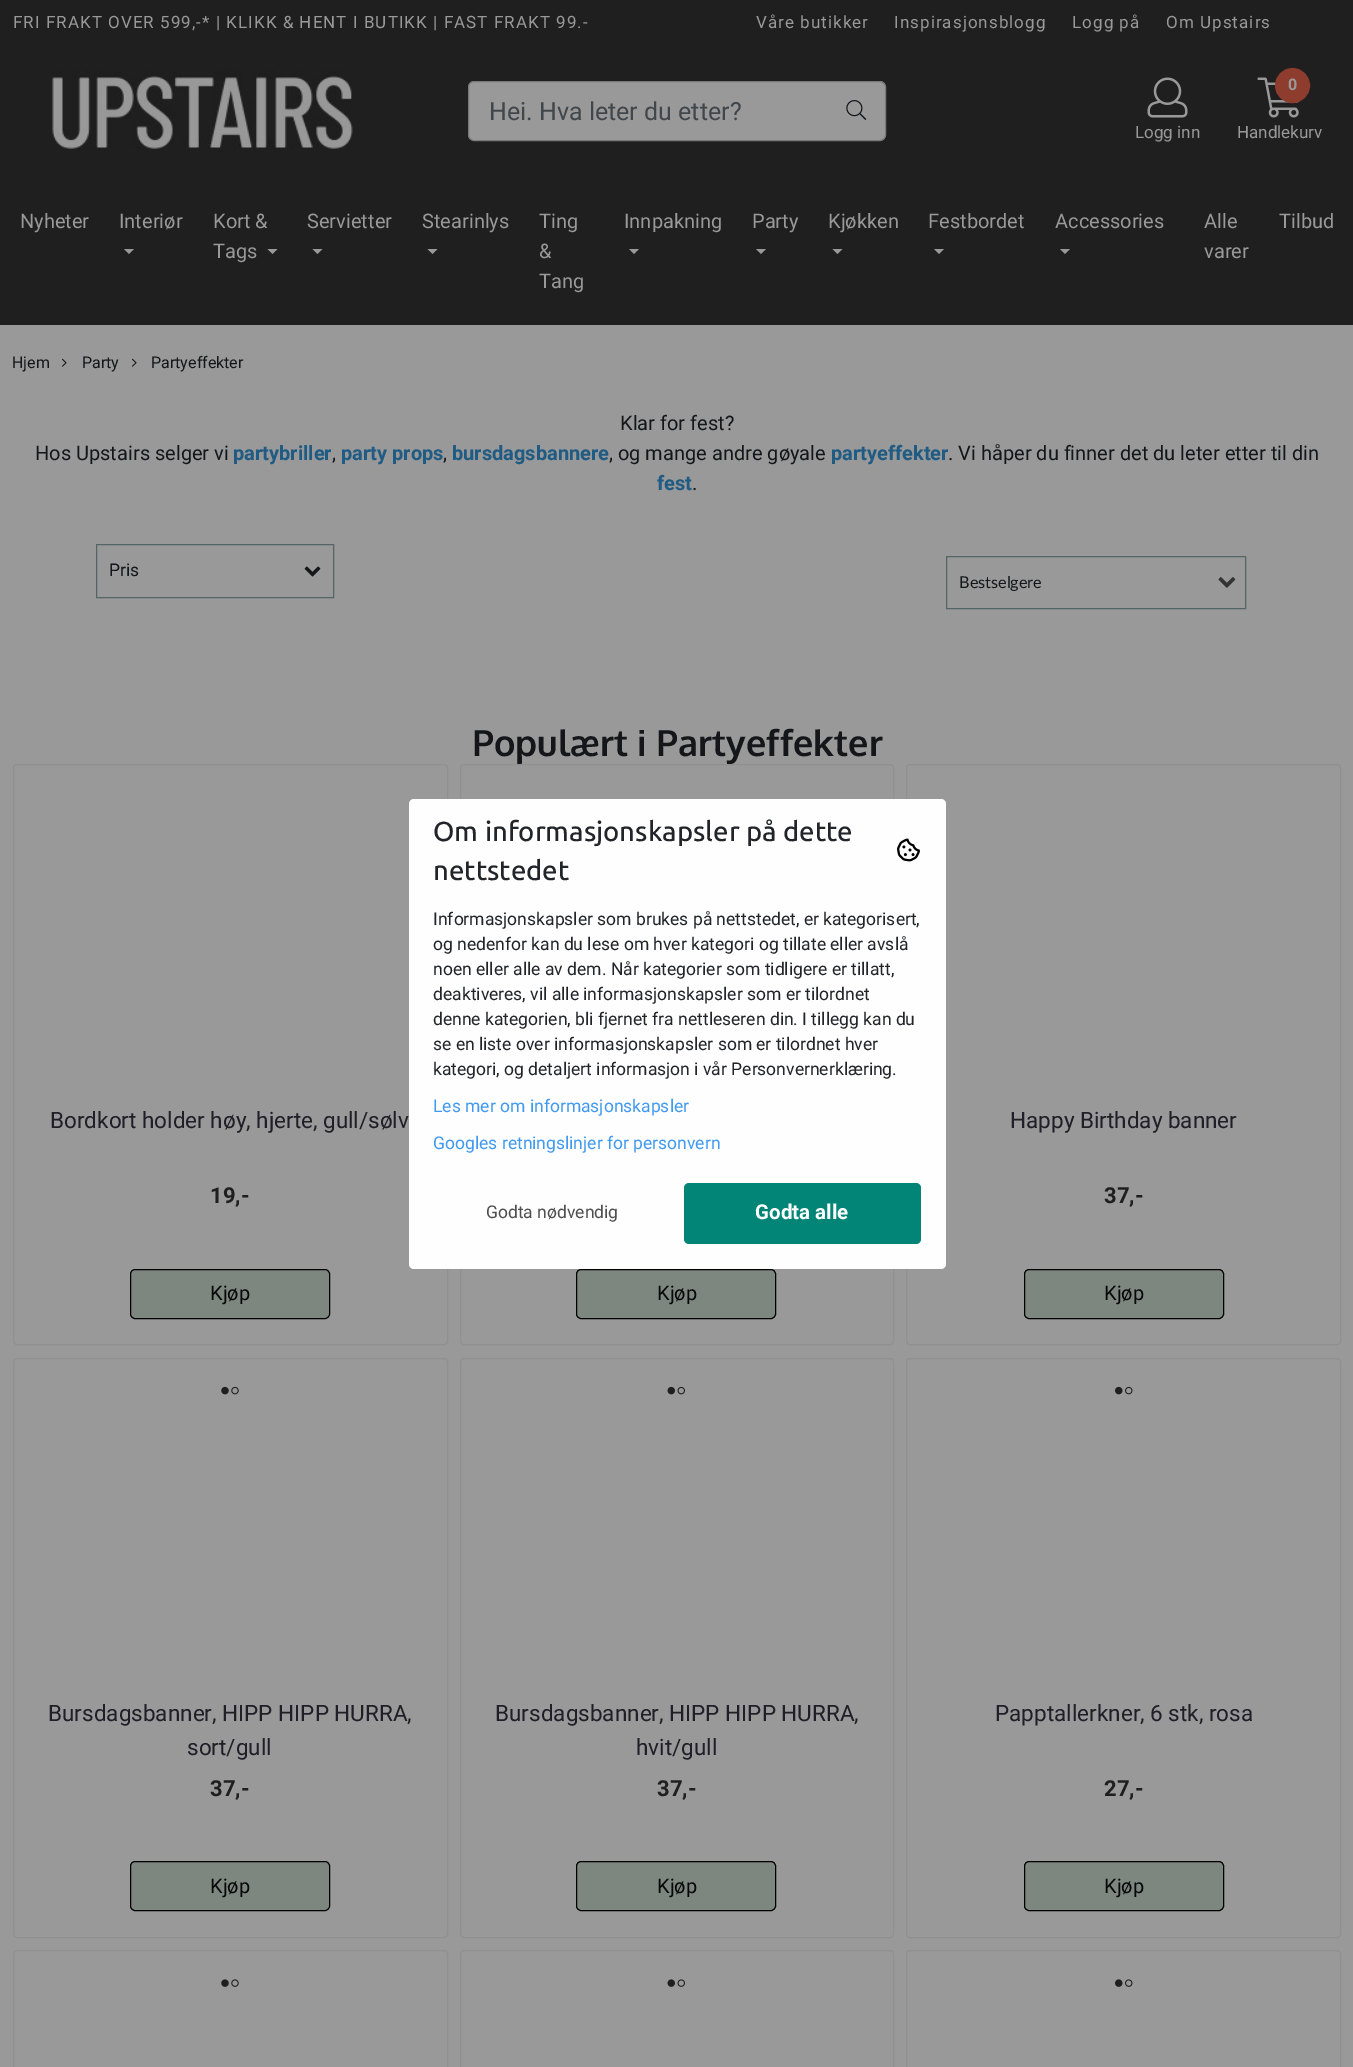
%!PS
<< /PageSize [1353 2067] >> setpagedevice
/rgb { dup -16 bitshift 255 div exch dup -8 bitshift 255 and 255 div exch 255 and 255 div setrgbcolor } def
/font { [ exch dup neg 0 0 3 -1 roll 0 0 ] selectfont } def
/text { moveto show } def
/circle { newpath 0 360 arc closepath } def
/roundrect { 5 dict begin { /r /h /w /y /x } { exch def } forall
  x r add y moveto x w add y 2 copy h add r arct x w add y h add x 1 index r arct
  x y h add x y r arct x y 2 copy exch w add exch r arct closepath end } def
/picture { 5 dict begin { /h /w /y /x /name } { exch def } forall
  gsave x y translate w h scale
  w h 8 [w 0 0 h 0 0] name (r) file false 3 colorimage grestore end } def
0 2067 translate 1 -1 scale
4 setmiterlimit
/s1 { /Roboto-Regular 25 font 16#41464B rgb } def
/s2 { /Roboto-Regular 17 font 16#999999 rgb } def
/s3 { /Roboto-Bold 16 font 16#999999 rgb } def
/s4 { /Roboto-Regular 20 font 16#999999 rgb } def
/s5 { /Roboto-Regular 16 font 16#141619 rgb } def
/s6 { /Roboto-Regular 20 font 16#141619 rgb } def
/s7 { /Roboto-Bold 20 font 16#1F5B83 rgb } def
/s8 { /Roboto-Regular 17.5 font 16#141619 rgb } def
/s9 { /Lato-Regular 16.25 font 16#141619 rgb } def
/s10 { /Oxygen-Bold 36 font 16#141619 rgb } def
/s11 { /Roboto-Regular 22.5 font 16#201E27 rgb } def
/s12 { /Roboto-Bold 22 font 16#1F1F1F rgb } def
/s13 { /Roboto-Regular 20 font 16#070808 rgb } def
/s14 { /Ubuntu-Medium 27.5 font 16#212529 rgb } def
/s15 { /Roboto-Regular 17.5 font 16#212529 rgb } def
/s16 { /Roboto-Regular 17.5 font 16#409AEF rgb } def
/s17 { /Roboto-Regular 17.5 font 16#4F4F4F rgb } def
/s18 { /Roboto-Bold 20.5 font 16#FFFFFF rgb } def
16#999999 rgb
0 0 1353 2067 rectfill
16#1F1F1F rgb
0 0 1353 325 rectfill
/Roboto-Regular 17 font
16#999999 rgb
13 28 moveto 1.05 0 (FRI FRAKT OVER 599,-* | KLIKK & HENT I BUTIKK | FAST FRAKT 99.-) ashow
756 28 moveto 1.05 0 (Våre butikker) ashow
894 28 moveto 1.05 0 (Inspirasjonsblogg) ashow
1072 28 moveto 1.05 0 (Logg på) ashow
1166 28 moveto 1.05 0 (Om Upstairs) ashow
(pic1.raw) 52 70 301 79 picture
468.5 81.5 417 59 5.5 roundrect gsave fill grestore
16#797979 rgb
stroke
s1
(Hei. Hva leter du etter?) 489 120 text
(pic2.raw) 846 100 21 20 picture
(pic3.raw) 1147 77 41 41 picture
s2
(Logg inn) 1135 138 text
(pic4.raw) 1257 77 42 41 picture
16#8E3C2D rgb
1292.5 85.5 16 circle gsave fill grestore
3 setlinewidth
stroke
s3
(0) 1288 90 text
s2
(Handlekurv) 1237 138 text
s4
(Nyheter) 20 228 text
(Interiør) 119 228 text
124 249 moveto 134 249 lineto 129 254 lineto closepath fill
(Kort &) 213 228 text
(Tags) 213 258 text
267.5 249 moveto 277.5 249 lineto 272.5 254 lineto closepath fill
(Servietter) 307 228 text
312.5 249 moveto 322.5 249 lineto 317.5 254 lineto closepath fill
(Stearinlys) 422 228 text
427.5 249 moveto 437.5 249 lineto 432.5 254 lineto closepath fill
(Ting) 539 228 text
(&) 539 258 text
(Tang) 539 288 text
(Innpakning) 624 228 text
629 249 moveto 639 249 lineto 634 254 lineto closepath fill
(Party) 752 228 text
756 249 moveto 766 249 lineto 761 254 lineto closepath fill
(Kjøkken) 828 228 text
832.5 249 moveto 842.5 249 lineto 837.5 254 lineto closepath fill
(Festbordet) 928 228 text
934 249 moveto 944 249 lineto 939 254 lineto closepath fill
(Accessories) 1055 228 text
1060 249 moveto 1070 249 lineto 1065 254 lineto closepath fill
(Alle) 1204 228 text
(varer) 1204 258 text
(Tilbud) 1279 228 text
s5
(Hjem) 12 368 text
(pic5.raw) 62 358 5 9 picture
(Party) 82 368 text
(pic5.raw) 132 358 5 9 picture
(Partyeffekter) 151 368 text
s6
(Klar for fest?) 620 430 text
(Hos Upstairs selger vi) 35 460 text
s7
(partybriller) 233 460 text
s6
(,) 332 460 text
s7
(party props) 341 460 text
s6
(,) 443 460 text
s7
(bursdagsbannere) 452 460 text
s6
(, og mange andre gøyale) 609 460 text
s7
(partyeffekter) 831 460 text
s6
(. Vi håper du finner det du leter etter til din) 948 460 text
s7
(fest) 657 490 text
s6
(.) 692 490 text
16#556464 rgb
1 setlinewidth
96.5 544.5 237 53 rectstroke
s8
(Pris) 109 576 text
(pic6.raw) 304 566 17 11 picture
16#556464 rgb
946.5 556.5 299 52 rectstroke
s9
(Bestselgere) 959 588 text
(pic7.raw) 1218 577 18 11 picture
s10
(Populært i Partyeffekter) 472 756 text
16#909090 rgb
13.5 764.5 434 580 3.5 roundrect stroke
s11
(Bordkort holder høy, hjerte, gull/sølv) 50 1128 text
s12
(19,-) 210 1203 text
16#7E8680 rgb
130.5 1269.5 199 49 4.5 roundrect gsave fill grestore
16#000000 rgb
stroke
s13
(Kjøp) 210 1300 text
16#999999 rgb
460.5 764.5 433 580 3.5 roundrect gsave fill grestore
16#909090 rgb
stroke
16#7E8680 rgb
576.5 1269.5 199 49 4.5 roundrect gsave fill grestore
16#000000 rgb
stroke
s13
(Kjøp) 657 1300 text
16#909090 rgb
906.5 764.5 434 580 3.5 roundrect stroke
s11
(Happy Birthday banner) 1010 1128 text
s12
(37,-) 1104 1203 text
16#7E8680 rgb
1024.5 1269.5 199 49 4.5 roundrect gsave fill grestore
16#000000 rgb
stroke
s13
(Kjøp) 1104 1300 text
16#909090 rgb
13.5 1358.5 434 579 3.5 roundrect stroke
(pic8.raw) 221 1386 8 9 picture
(pic9.raw) 231 1386 8 9 picture
s11
(Bursdagsbanner, HIPP HIPP HURRA,) 48 1721 text
(sort/gull) 187 1755 text
s12
(37,-) 210 1796 text
16#7E8680 rgb
130.5 1861.5 199 49 4.5 roundrect gsave fill grestore
16#000000 rgb
stroke
s13
(Kjøp) 210 1893 text
16#909090 rgb
460.5 1358.5 433 579 3.5 roundrect stroke
(pic10.raw) 667 1386 8 9 picture
(pic11.raw) 677 1386 8 9 picture
s11
(Bursdagsbanner, HIPP HIPP HURRA,) 495 1721 text
(hvit/gull) 636 1755 text
s12
(37,-) 657 1796 text
16#7E8680 rgb
576.5 1861.5 199 49 4.5 roundrect gsave fill grestore
16#000000 rgb
stroke
s13
(Kjøp) 657 1893 text
16#909090 rgb
906.5 1358.5 434 579 3.5 roundrect stroke
(pic12.raw) 1115 1386 8 9 picture
(pic13.raw) 1125 1386 8 9 picture
s11
(Papptallerkner, 6 stk, rosa) 995 1721 text
s12
(27,-) 1104 1796 text
16#7E8680 rgb
1024.5 1861.5 199 49 4.5 roundrect gsave fill grestore
16#000000 rgb
stroke
s13
(Kjøp) 1104 1893 text
16#909090 rgb
13.5 1950.5 434 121 3.5 roundrect stroke
(pic14.raw) 221 1979 8 8 picture
(pic15.raw) 231 1979 8 8 picture
460.5 1950.5 433 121 3.5 roundrect stroke
(pic16.raw) 667 1979 8 8 picture
(pic17.raw) 677 1979 8 8 picture
906.5 1950.5 434 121 3.5 roundrect stroke
(pic18.raw) 1115 1979 8 8 picture
(pic19.raw) 1125 1979 8 8 picture
16#FEFEFE rgb
409 799 537 470 5 roundrect fill
s14
(Om informasjonskapsler på dette) 433 841 text
(nettstedet) 433 880 text
(pic20.raw) 897 838 23 24 picture
s15
(Informasjonskapsler som brukes på nettstedet, er kategorisert,) 433 925 text
(og nedenfor kan du lese om hver kategori og tillate eller avslå) 433 950 text
(noen eller alle av dem. Når kategorier som tidligere er tillatt,) 433 975 text
(deaktiveres, vil alle informasjonskapsler som er tilordnet) 433 1000 text
(denne kategorien, bli fjernet fra nettleseren din. I tillegg kan du) 433 1025 text
(se en liste over informasjonskapsler som er tilordnet hver) 433 1050 text
(kategori, og detaljert informasjon i vår Personvernerklæring.) 433 1075 text
s16
(Les mer om informasjonskapsler) 433 1112 text
(Googles retningslinjer for personvern) 433 1149 text
s17
(Godta nødvendig) 486 1218 text
16#028577 rgb
684 1183 237 61 5 roundrect fill
s18
(Godta alle) 755 1219 text
showpage
